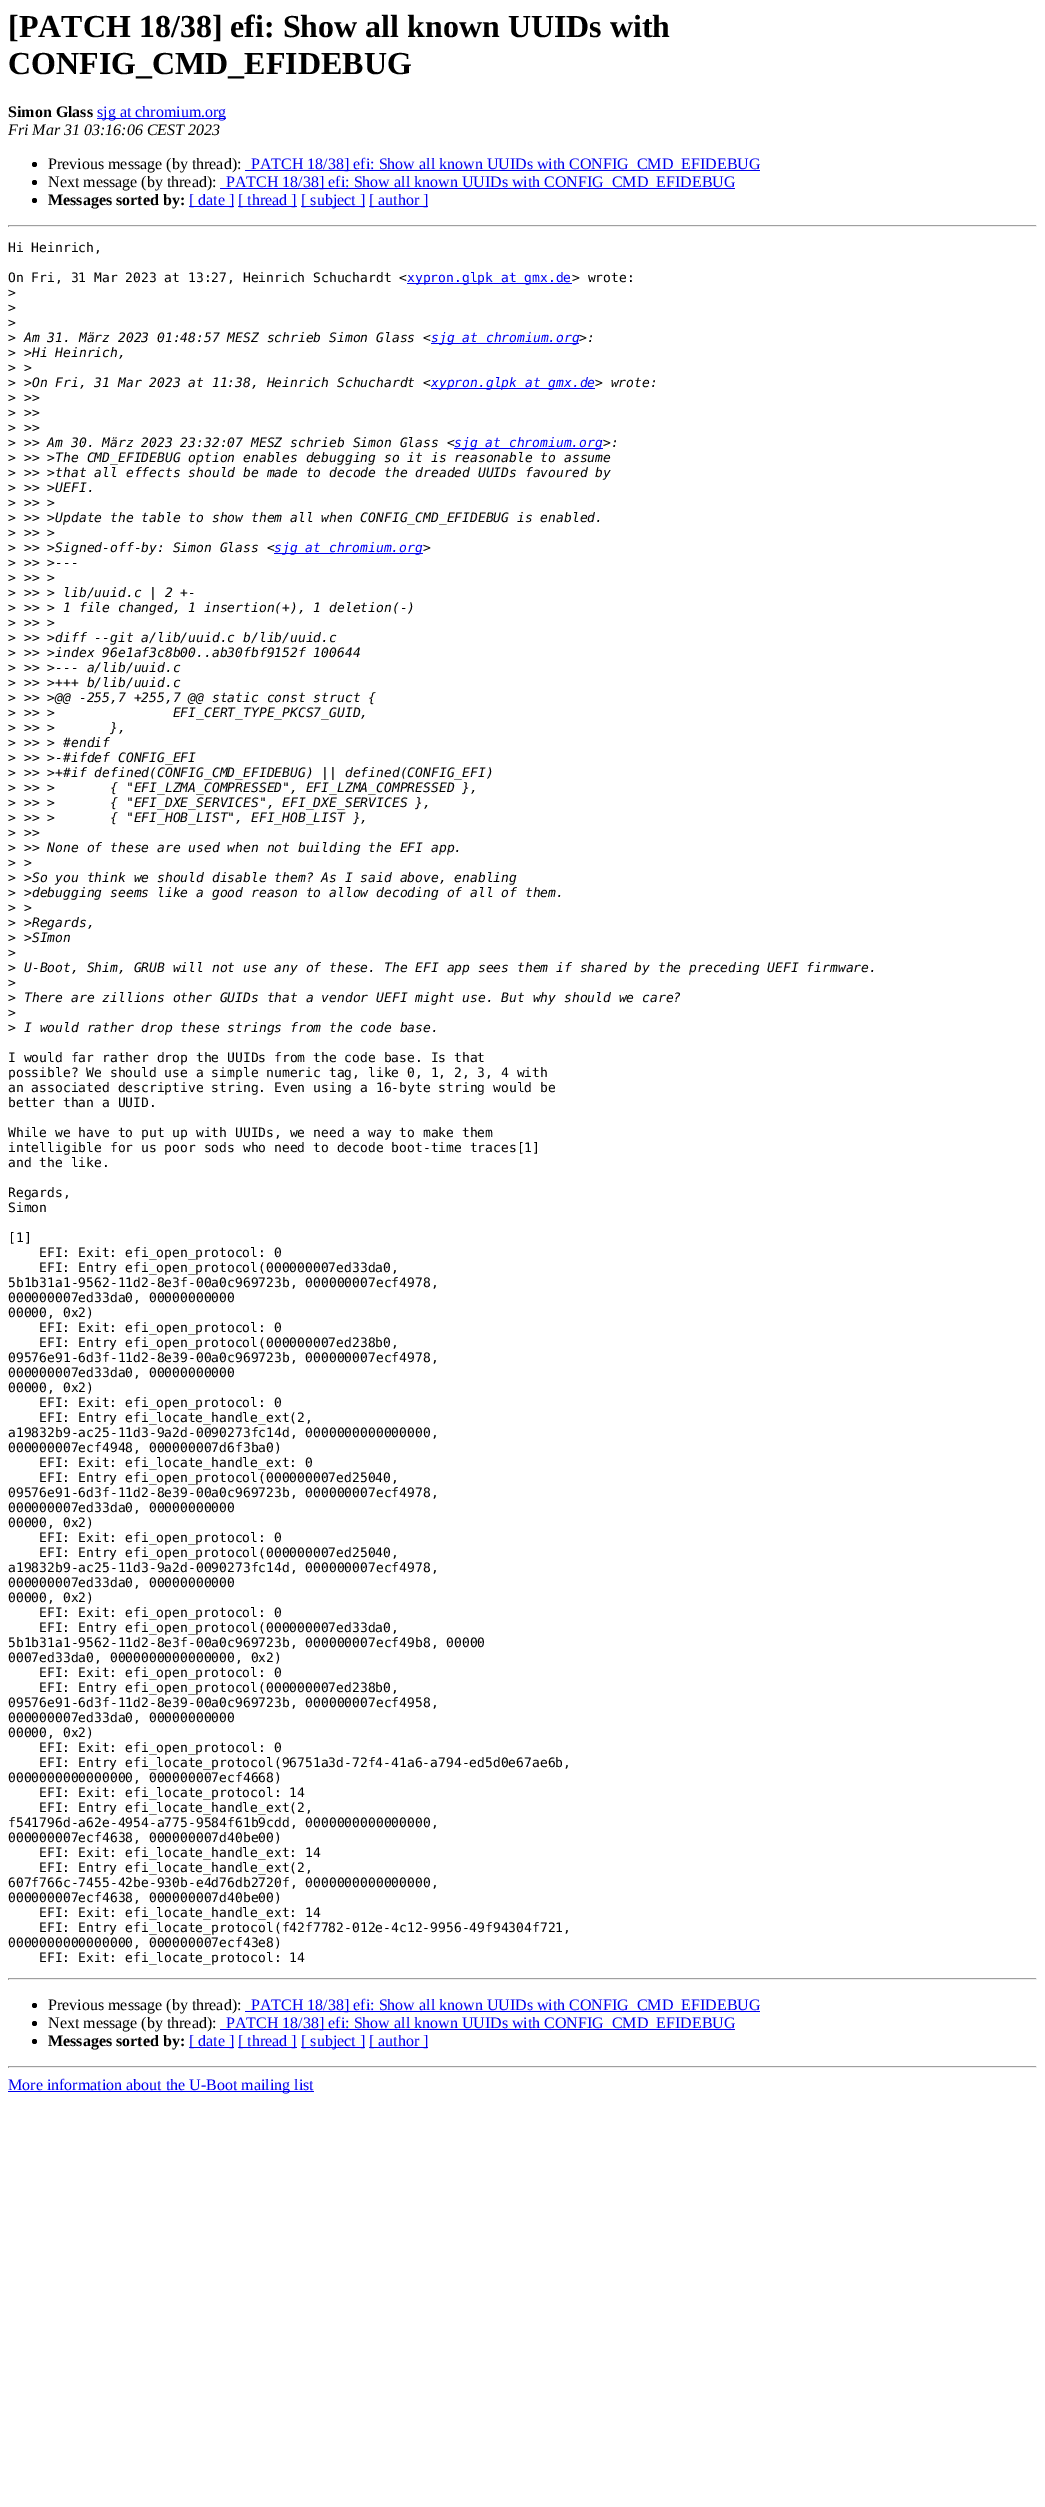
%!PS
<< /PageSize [1045 2507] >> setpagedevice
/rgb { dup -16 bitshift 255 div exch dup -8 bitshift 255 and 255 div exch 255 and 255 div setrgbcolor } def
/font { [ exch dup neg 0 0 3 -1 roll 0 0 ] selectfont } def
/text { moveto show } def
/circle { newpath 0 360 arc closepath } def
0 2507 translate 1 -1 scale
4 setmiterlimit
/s1 { /LiberationSerif-Bold 32 font 16#000000 rgb } def
/s2 { /LiberationSerif-Bold 16 font 16#000000 rgb } def
/s3 { /LiberationSerif-Regular 16 font 16#0000EE rgb } def
/s4 { /LiberationSerif-Italic 16 font 16#000000 rgb } def
/s5 { /LiberationSerif-Regular 16 font 16#000000 rgb } def
/s6 { /DejaVuSansMono-Regular 13 font 16#000000 rgb } def
/s7 { /DejaVuSansMono-Regular 13 font 16#0000EE rgb } def
/s8 { /DejaVuSansMono-Italic 13 font 16#000000 rgb } def
/s9 { /DejaVuSansMono-Italic 13 font 16#0000EE rgb } def
16#FFFFFF rgb
0 0 1045 2507 rectfill
s1
([PATCH 18/38] efi: Show all known UUIDs with) 8 37 text
(CONFIG_CMD_EFIDEBUG) 8 74 text
s2
(Simon Glass) 8 117 text
16#0000EE rgb
97 118 129 1 rectfill
s3
(sjg at chromium.org) 97 117 text
s4
(Fri Mar 31 03:16:06 CEST 2023) 8 135 text
34.5 164.5 2.5 circle fill
s5
(Previous message \(by thread\):) 48 169 text
16#0000EE rgb
245 170 515 1 rectfill
(PATCH 18/38] efi: Show all known UUIDs with CONFIG_CMD_EFIDEBUG) 251 169 text
16#000000 rgb
34.5 182.5 2.5 circle fill
(Next message \(by thread\):) 48 187 text
16#0000EE rgb
220 188 515 1 rectfill
(PATCH 18/38] efi: Show all known UUIDs with CONFIG_CMD_EFIDEBUG) 226 187 text
16#000000 rgb
34.5 200.5 2.5 circle fill
s2
(Messages sorted by:) 48 205 text
16#0000EE rgb
189 206 45 1 rectfill
s3
([ date ]) 189 205 text
238 206 59 1 rectfill
([ thread ]) 238 205 text
301 206 64 1 rectfill
([ subject ]) 301 205 text
369 206 59 1 rectfill
([ author ]) 369 205 text
16#9F9F9F rgb
8 225 1029 1 rectfill
16#EEEEEE rgb
1036 225 1 2 rectfill
8 226 1029 1 rectfill
16#9F9F9F rgb
8 225 1 2 rectfill
s6
(Hi Heinrich,) 8 252 text
(On Fri, 31 Mar 2023 at 13:27, Heinrich Schuchardt <) 8 282 text
16#0000EE rgb
407 283 165 1 rectfill
(xypron.glpk at gmx.de) 407 282 text
s6
(> wrote:) 572 282 text
(>) 8 297 text
(>) 8 312 text
(>) 8 327 text
(>) 8 342 text
s8
(Am 31. März 2023 01:48:57 MESZ schrieb Simon Glass <) 24 342 text
16#0000EE rgb
431 343 148 1 rectfill
(sjg at chromium.org) 431 342 text
s8
(>:) 579 342 text
s6
(>) 8 357 text
s8
(>Hi Heinrich,) 24 357 text
s6
(>) 8 372 text
s8
(>) 24 372 text
s6
(>) 8 387 text
s8
(>On Fri, 31 Mar 2023 at 11:38, Heinrich Schuchardt <) 24 387 text
16#0000EE rgb
431 388 164 1 rectfill
(xypron.glpk at gmx.de) 431 387 text
s8
(> wrote:) 595 387 text
s6
(>) 8 402 text
s8
(>>) 24 402 text
s6
(>) 8 417 text
s8
(>>) 24 417 text
s6
(>) 8 432 text
s8
(>>) 24 432 text
s6
(>) 8 447 text
s8
(>> Am 30. März 2023 23:32:07 MESZ schrieb Simon Glass <) 24 447 text
16#0000EE rgb
454 448 149 1 rectfill
(sjg at chromium.org) 454 447 text
s8
(>:) 603 447 text
s6
(>) 8 462 text
s8
(>> >The CMD_EFIDEBUG option enables debugging so it is reasonable to assume) 24 462 text
s6
(>) 8 477 text
s8
(>> >that all effects should be made to decode the dreaded UUIDs favoured by) 24 477 text
s6
(>) 8 492 text
s8
(>> >UEFI.) 24 492 text
s6
(>) 8 507 text
s8
(>> >) 24 507 text
s6
(>) 8 522 text
s8
(>> >Update the table to show them all when CONFIG_CMD_EFIDEBUG is enabled.) 24 522 text
s6
(>) 8 537 text
s8
(>> >) 24 537 text
s6
(>) 8 552 text
s8
(>> >Signed-off-by: Simon Glass <) 24 552 text
16#0000EE rgb
274 553 149 1 rectfill
(sjg at chromium.org) 274 552 text
s8
(>) 423 552 text
s6
(>) 8 567 text
s8
(>> >---) 24 567 text
s6
(>) 8 582 text
s8
(>> >) 24 582 text
s6
(>) 8 597 text
s8
(>> > lib/uuid.c | 2 +-) 24 597 text
s6
(>) 8 612 text
s8
(>> > 1 file changed, 1 insertion\(+\), 1 deletion\(-\)) 24 612 text
s6
(>) 8 627 text
s8
(>> >) 24 627 text
s6
(>) 8 642 text
s8
(>> >diff --git a/lib/uuid.c b/lib/uuid.c) 24 642 text
s6
(>) 8 657 text
s8
(>> >index 96e1af3c8b00..ab30fbf9152f 100644) 24 657 text
s6
(>) 8 672 text
s8
(>> >--- a/lib/uuid.c) 24 672 text
s6
(>) 8 687 text
s8
(>> >+++ b/lib/uuid.c) 24 687 text
s6
(>) 8 702 text
s8
(>> >@@ -255,7 +255,7 @@ static const struct {) 24 702 text
s6
(>) 8 717 text
s8
(>> >               EFI_CERT_TYPE_PKCS7_GUID,) 24 717 text
s6
(>) 8 732 text
s8
(>> >       },) 24 732 text
s6
(>) 8 747 text
s8
(>> > #endif) 24 747 text
s6
(>) 8 762 text
s8
(>> >-#ifdef CONFIG_EFI) 24 762 text
s6
(>) 8 777 text
s8
(>> >+#if defined\(CONFIG_CMD_EFIDEBUG\) || defined\(CONFIG_EFI\)) 24 777 text
s6
(>) 8 792 text
s8
(>> >       { "EFI_LZMA_COMPRESSED", EFI_LZMA_COMPRESSED },) 24 792 text
s6
(>) 8 807 text
s8
(>> >       { "EFI_DXE_SERVICES", EFI_DXE_SERVICES },) 24 807 text
s6
(>) 8 822 text
s8
(>> >       { "EFI_HOB_LIST", EFI_HOB_LIST },) 24 822 text
s6
(>) 8 837 text
s8
(>>) 24 837 text
s6
(>) 8 852 text
s8
(>> None of these are used when not building the EFI app.) 24 852 text
s6
(>) 8 867 text
s8
(>) 24 867 text
s6
(>) 8 882 text
s8
(>So you think we should disable them? As I said above, enabling) 24 882 text
s6
(>) 8 897 text
s8
(>debugging seems like a good reason to allow decoding of all of them.) 24 897 text
s6
(>) 8 912 text
s8
(>) 24 912 text
s6
(>) 8 927 text
s8
(>Regards,) 24 927 text
s6
(>) 8 942 text
s8
(>SImon) 24 942 text
s6
(>) 8 957 text
(>) 8 972 text
s8
(U-Boot, Shim, GRUB will not use any of these. The EFI app sees them if shared by the preceding UEFI firmware.) 24 972 text
s6
(>) 8 987 text
(>) 8 1002 text
s8
(There are zillions other GUIDs that a vendor UEFI might use. But why should we care?) 24 1002 text
s6
(>) 8 1017 text
(>) 8 1032 text
s8
(I would rather drop these strings from the code base.) 24 1032 text
s6
(I would far rather drop the UUIDs from the code base. Is that) 8 1062 text
(possible? We should use a simple numeric tag, like 0, 1, 2, 3, 4 with) 8 1077 text
(an associated descriptive string. Even using a 16-byte string would be) 8 1092 text
(better than a UUID.) 8 1107 text
(While we have to put up with UUIDs, we need a way to make them) 8 1137 text
(intelligible for us poor sods who need to decode boot-time traces[1]) 8 1152 text
(and the like.) 8 1167 text
(Regards,) 8 1197 text
(Simon) 8 1212 text
([1]) 8 1242 text
(EFI: Exit: efi_open_protocol: 0) 39 1257 text
(EFI: Entry efi_open_protocol\(000000007ed33da0,) 39 1272 text
(5b1b31a1-9562-11d2-8e3f-00a0c969723b, 000000007ecf4978,) 8 1287 text
(000000007ed33da0, 00000000000) 8 1302 text
(00000, 0x2\)) 8 1317 text
(EFI: Exit: efi_open_protocol: 0) 39 1332 text
(EFI: Entry efi_open_protocol\(000000007ed238b0,) 39 1347 text
(09576e91-6d3f-11d2-8e39-00a0c969723b, 000000007ecf4978,) 8 1362 text
(000000007ed33da0, 00000000000) 8 1377 text
(00000, 0x2\)) 8 1392 text
(EFI: Exit: efi_open_protocol: 0) 39 1407 text
(EFI: Entry efi_locate_handle_ext\(2,) 39 1422 text
(a19832b9-ac25-11d3-9a2d-0090273fc14d, 0000000000000000,) 8 1437 text
(000000007ecf4948, 000000007d6f3ba0\)) 8 1452 text
(EFI: Exit: efi_locate_handle_ext: 0) 39 1467 text
(EFI: Entry efi_open_protocol\(000000007ed25040,) 39 1482 text
(09576e91-6d3f-11d2-8e39-00a0c969723b, 000000007ecf4978,) 8 1497 text
(000000007ed33da0, 00000000000) 8 1512 text
(00000, 0x2\)) 8 1527 text
(EFI: Exit: efi_open_protocol: 0) 39 1542 text
(EFI: Entry efi_open_protocol\(000000007ed25040,) 39 1557 text
(a19832b9-ac25-11d3-9a2d-0090273fc14d, 000000007ecf4978,) 8 1572 text
(000000007ed33da0, 00000000000) 8 1587 text
(00000, 0x2\)) 8 1602 text
(EFI: Exit: efi_open_protocol: 0) 39 1617 text
(EFI: Entry efi_open_protocol\(000000007ed33da0,) 39 1632 text
(5b1b31a1-9562-11d2-8e3f-00a0c969723b, 000000007ecf49b8, 00000) 8 1647 text
(0007ed33da0, 0000000000000000, 0x2\)) 8 1662 text
(EFI: Exit: efi_open_protocol: 0) 39 1677 text
(EFI: Entry efi_open_protocol\(000000007ed238b0,) 39 1692 text
(09576e91-6d3f-11d2-8e39-00a0c969723b, 000000007ecf4958,) 8 1707 text
(000000007ed33da0, 00000000000) 8 1722 text
(00000, 0x2\)) 8 1737 text
(EFI: Exit: efi_open_protocol: 0) 39 1752 text
(EFI: Entry efi_locate_protocol\(96751a3d-72f4-41a6-a794-ed5d0e67ae6b,) 39 1767 text
(0000000000000000, 000000007ecf4668\)) 8 1782 text
(EFI: Exit: efi_locate_protocol: 14) 39 1797 text
(EFI: Entry efi_locate_handle_ext\(2,) 39 1812 text
(f541796d-a62e-4954-a775-9584f61b9cdd, 0000000000000000,) 8 1827 text
(000000007ecf4638, 000000007d40be00\)) 8 1842 text
(EFI: Exit: efi_locate_handle_ext: 14) 39 1857 text
(EFI: Entry efi_locate_handle_ext\(2,) 39 1872 text
(607f766c-7455-42be-930b-e4d76db2720f, 0000000000000000,) 8 1887 text
(000000007ecf4638, 000000007d40be00\)) 8 1902 text
(EFI: Exit: efi_locate_handle_ext: 14) 39 1917 text
(EFI: Entry efi_locate_protocol\(f42f7782-012e-4c12-9956-49f94304f721,) 39 1932 text
(0000000000000000, 000000007ecf43e8\)) 8 1947 text
(EFI: Exit: efi_locate_protocol: 14) 39 1962 text
16#9F9F9F rgb
8 1978 1029 1 rectfill
16#EEEEEE rgb
1036 1978 1 2 rectfill
8 1979 1029 1 rectfill
16#9F9F9F rgb
8 1978 1 2 rectfill
16#000000 rgb
34.5 2005.5 2.5 circle fill
s5
(Previous message \(by thread\):) 48 2010 text
16#0000EE rgb
245 2011 515 1 rectfill
(PATCH 18/38] efi: Show all known UUIDs with CONFIG_CMD_EFIDEBUG) 251 2010 text
16#000000 rgb
34.5 2023.5 2.5 circle fill
(Next message \(by thread\):) 48 2028 text
16#0000EE rgb
220 2029 515 1 rectfill
(PATCH 18/38] efi: Show all known UUIDs with CONFIG_CMD_EFIDEBUG) 226 2028 text
16#000000 rgb
34.5 2041.5 2.5 circle fill
s2
(Messages sorted by:) 48 2046 text
16#0000EE rgb
189 2047 45 1 rectfill
s3
([ date ]) 189 2046 text
238 2047 59 1 rectfill
([ thread ]) 238 2046 text
301 2047 64 1 rectfill
([ subject ]) 301 2046 text
369 2047 59 1 rectfill
([ author ]) 369 2046 text
16#9F9F9F rgb
8 2066 1029 1 rectfill
16#EEEEEE rgb
1036 2066 1 2 rectfill
8 2067 1029 1 rectfill
16#9F9F9F rgb
8 2066 1 2 rectfill
16#0000EE rgb
8 2091 306 1 rectfill
(More information about the U-Boot mailing list) 8 2090 text
showpage
